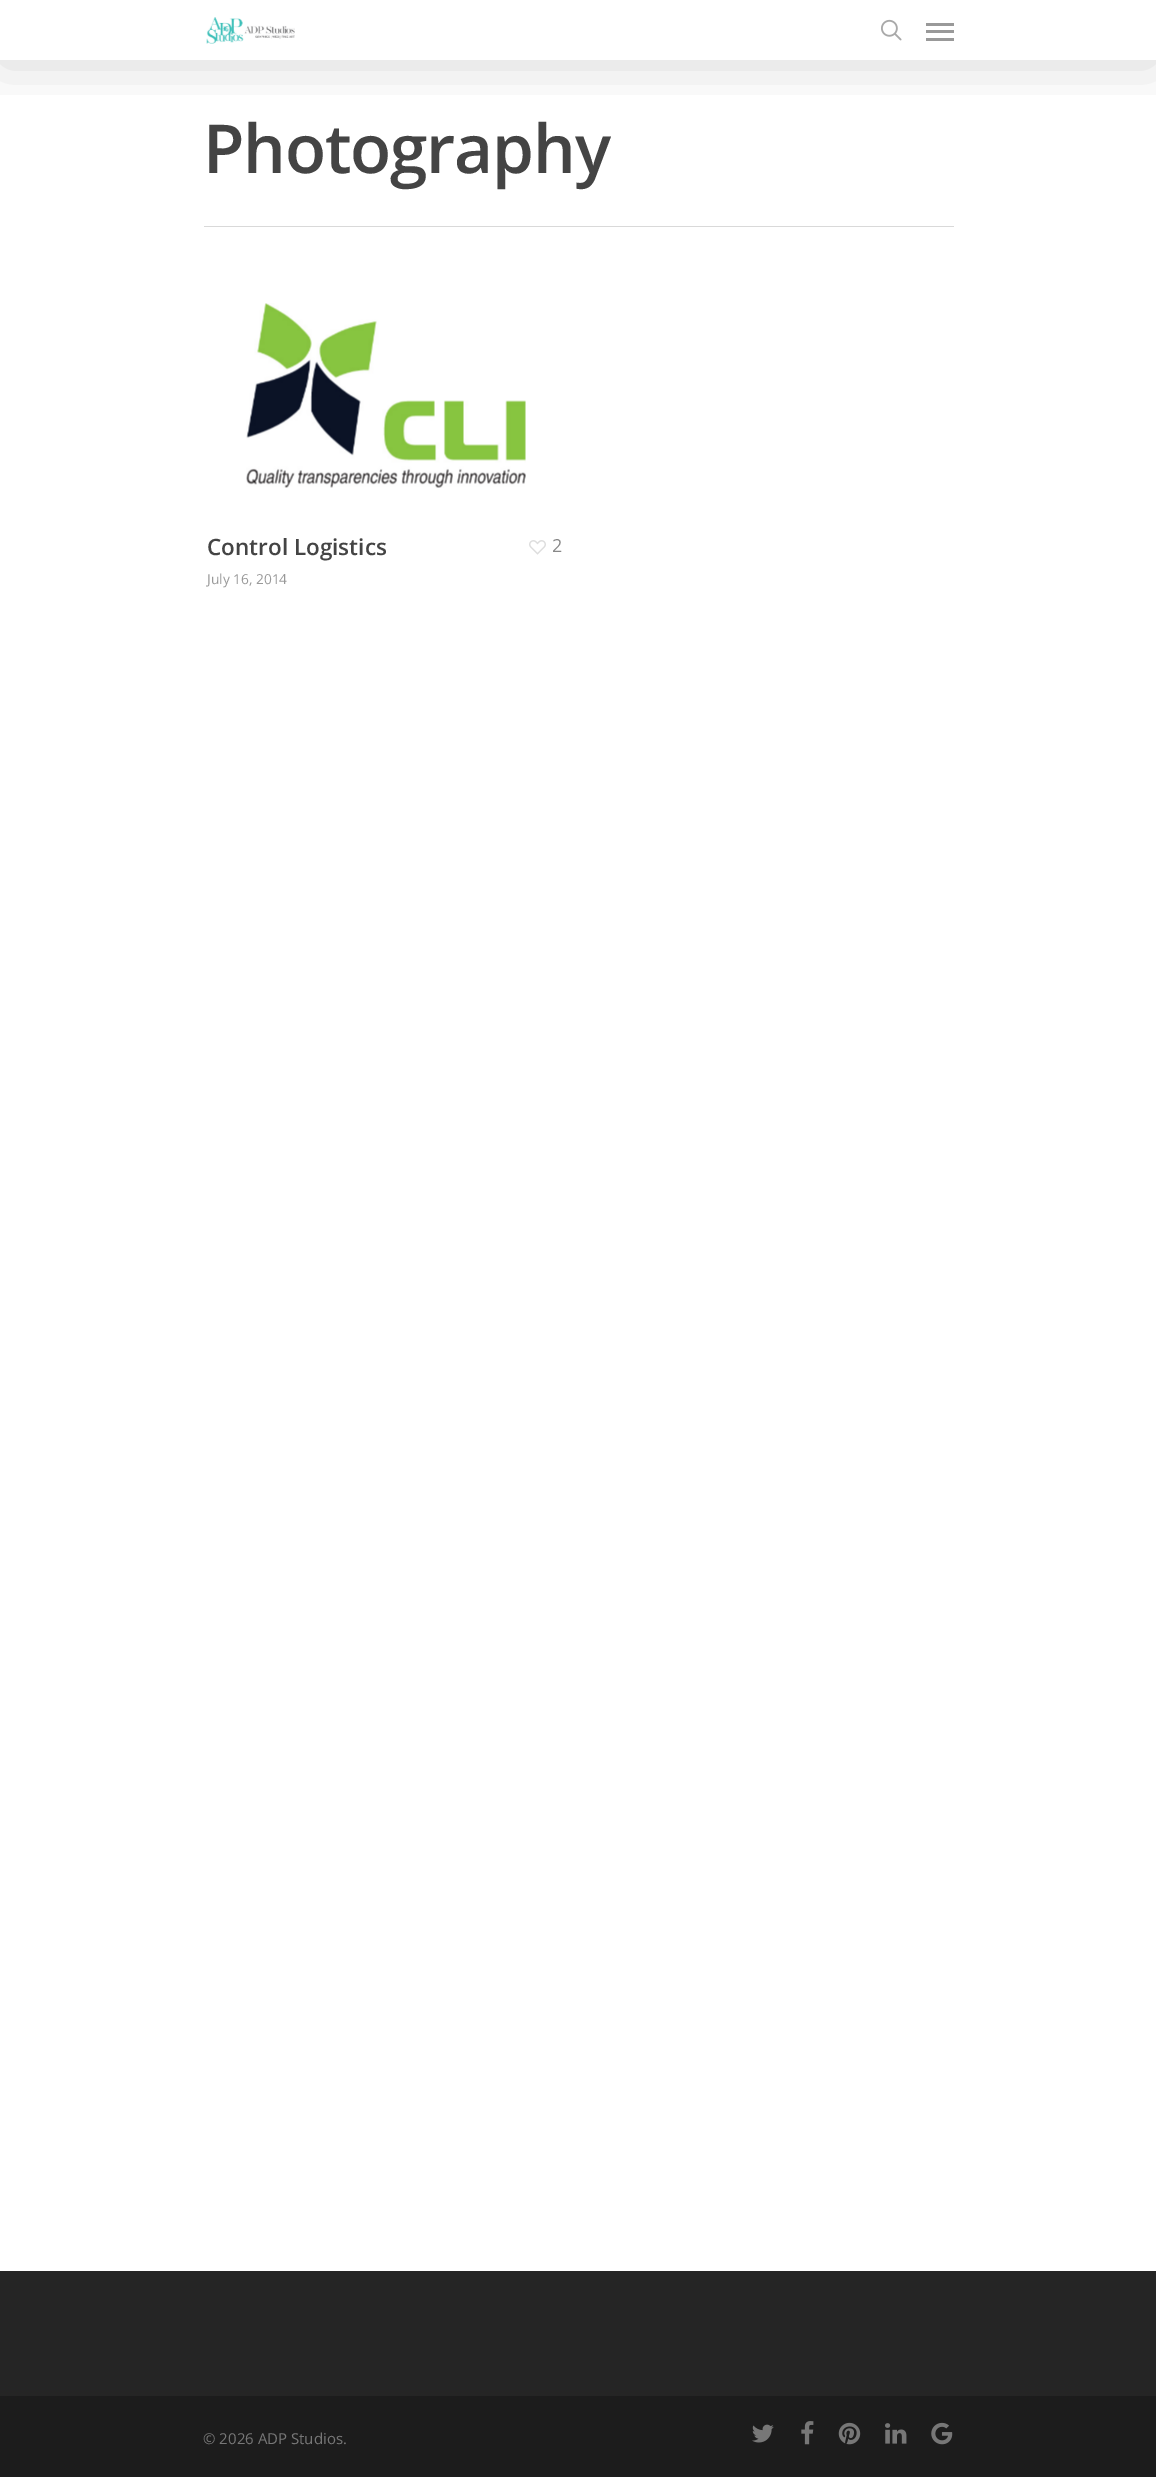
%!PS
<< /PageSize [1156 2477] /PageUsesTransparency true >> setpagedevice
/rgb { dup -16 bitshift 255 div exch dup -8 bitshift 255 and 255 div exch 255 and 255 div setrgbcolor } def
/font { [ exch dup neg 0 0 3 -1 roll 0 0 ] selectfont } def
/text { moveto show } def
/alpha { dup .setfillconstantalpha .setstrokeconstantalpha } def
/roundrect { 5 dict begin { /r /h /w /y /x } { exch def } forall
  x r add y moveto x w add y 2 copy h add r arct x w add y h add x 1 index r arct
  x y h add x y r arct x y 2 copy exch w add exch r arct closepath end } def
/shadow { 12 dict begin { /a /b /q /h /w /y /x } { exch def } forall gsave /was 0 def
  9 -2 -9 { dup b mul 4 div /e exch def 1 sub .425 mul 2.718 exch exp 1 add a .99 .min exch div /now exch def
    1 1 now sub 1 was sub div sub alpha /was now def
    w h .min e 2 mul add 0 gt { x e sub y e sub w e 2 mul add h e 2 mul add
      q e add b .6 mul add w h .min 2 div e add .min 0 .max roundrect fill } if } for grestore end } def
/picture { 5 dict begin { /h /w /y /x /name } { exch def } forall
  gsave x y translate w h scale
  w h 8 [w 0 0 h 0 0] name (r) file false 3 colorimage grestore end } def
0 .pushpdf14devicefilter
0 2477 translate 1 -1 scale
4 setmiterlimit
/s1 { /OpenSans-SemiBold 22.5 font 16#444444 rgb } def
/s2 { /OpenSans-Regular 13.75 font 16#999999 rgb } def
/s3 { /OpenSans-Regular 18 font 16#888888 rgb } def
/s4 { /OpenSans-Regular 15 font 16#777777 rgb } def
16#FFFFFF rgb
0 0 1156 2477 rectfill
gsave
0 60 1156 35 rectclip
16#000000 rgb
0 4 1156 60 0 28 0.15 shadow
grestore
(pic1.raw) 206 17 89 27 picture
(pic2.raw) 881 19 21 22 picture
16#999999 rgb
926 23 28 3 rectfill
926 38 28 3 rectfill
926 30 28 3 rectfill
16#D9D9D9 rgb
204 226 750 1 rectfill
/OpenSans-SemiBold 67.5 font
16#444444 rgb
203 173 moveto -1.25 0 (Photography) ashow
(pic3.raw) 246 303 280 185 picture
s1
(Control Logistics) 207 555 text
s2
(July 16, 2014) 207 584 text
(pic4.raw) 529 540 17 15 picture
s3
(2) 552 552 text
16#252525 rgb
0 2271 1156 125 rectfill
16#1C1C1C rgb
0 2396 1156 81 rectfill
s4
(© 2026 ADP Studios.) 203 2444 text
(pic5.raw) 752 2424 22 19 picture
(pic6.raw) 801 2421 13 24 picture
(pic7.raw) 838 2422 23 23 picture
(pic8.raw) 885 2423 22 21 picture
(pic9.raw) 931 2422 22 23 picture
.poppdf14devicefilter showpage
